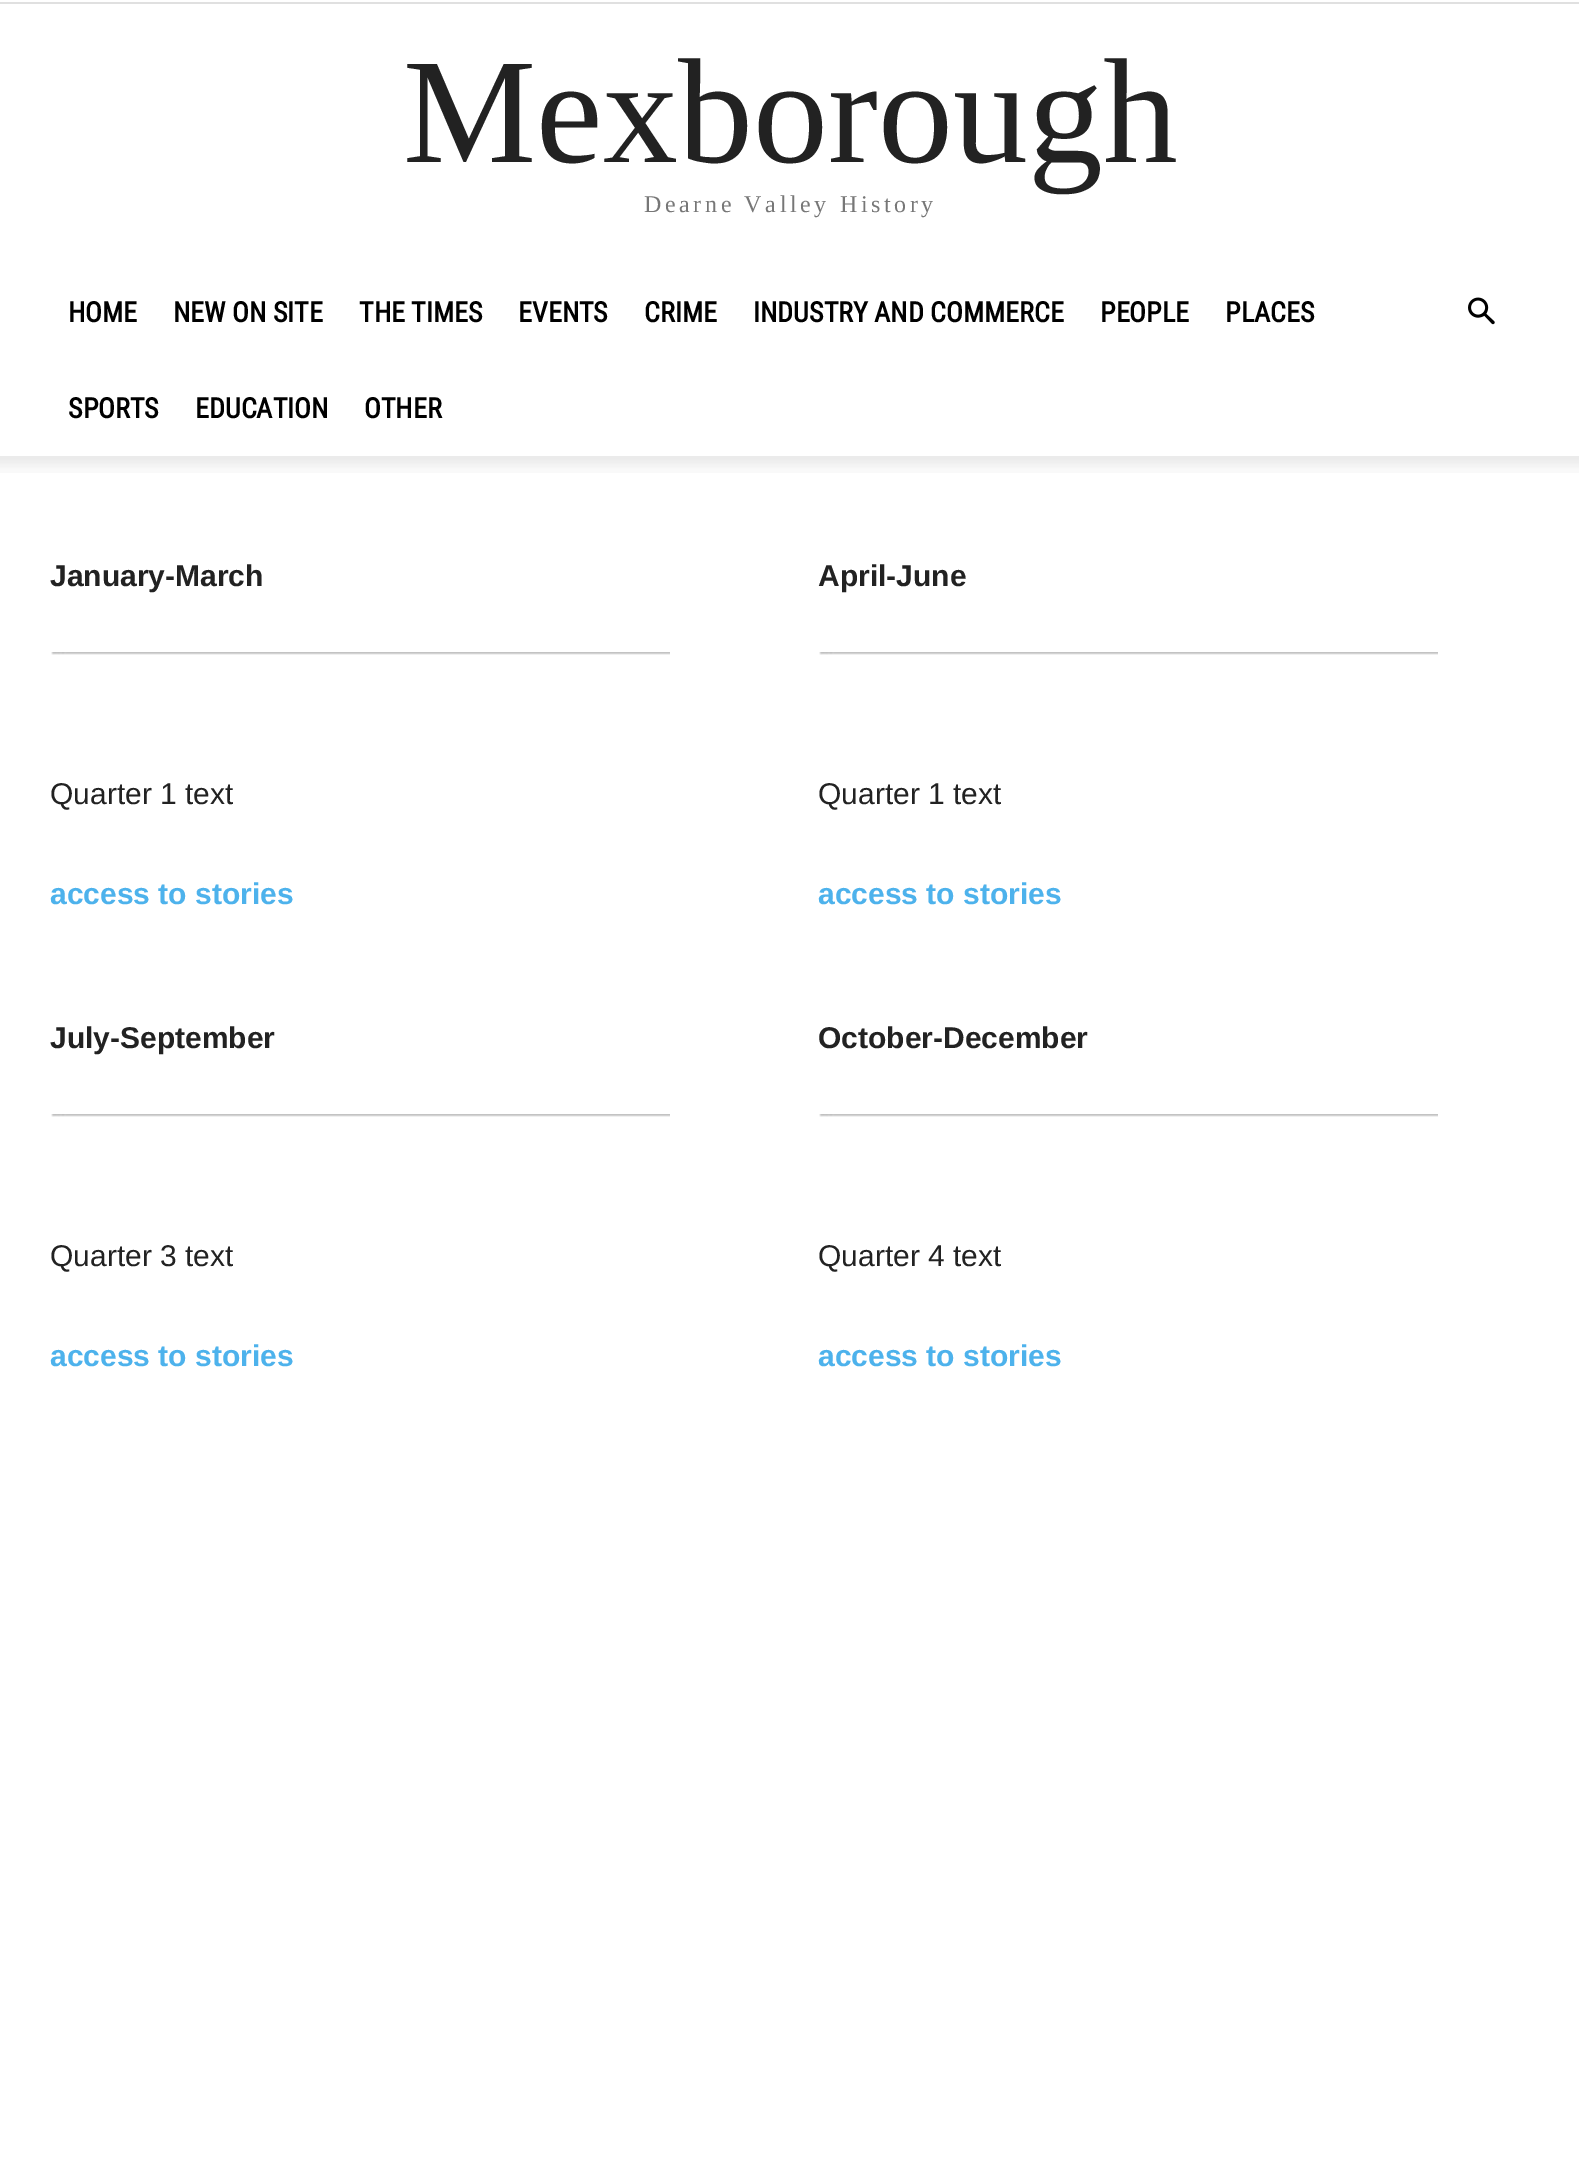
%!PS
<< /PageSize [1579 2169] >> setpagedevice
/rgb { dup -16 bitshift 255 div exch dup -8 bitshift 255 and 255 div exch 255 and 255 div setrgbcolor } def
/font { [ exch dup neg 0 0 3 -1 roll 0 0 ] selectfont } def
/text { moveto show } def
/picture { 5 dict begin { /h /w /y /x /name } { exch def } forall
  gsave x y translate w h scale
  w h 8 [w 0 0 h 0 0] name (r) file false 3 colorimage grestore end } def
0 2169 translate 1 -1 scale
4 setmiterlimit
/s1 { /LiberationSerif-Regular 150 font 16#222222 rgb } def
/s2 { /RobotoCondensed-Bold 28 font 16#000000 rgb } def
/s3 { /LiberationSans-Bold 30 font 16#222222 rgb } def
/s4 { /LiberationSans-Regular 30 font 16#222222 rgb } def
/s5 { /LiberationSans-Bold 30 font 16#4DB2EC rgb } def
16#FFFFFF rgb
0 0 1579 2169 rectfill
16#E0E0E0 rgb
0 2 1579 2 rectfill
s1
(Mexborough) 403 162 text
/LiberationSerif-Regular 24 font
16#777777 rgb
644 212 moveto 3.6 0 (Dearne Valley History) ashow
s2
(HOME) 68 322 text
(NEW ON SITE) 173 322 text
(THE TIMES) 359 322 text
(EVENTS) 518 322 text
(CRIME) 644 322 text
(INDUSTRY AND COMMERCE) 753 322 text
(PEOPLE) 1100 322 text
(PLACES) 1225 322 text
(SPORTS) 68 418 text
(EDUCATION) 195 418 text
(OTHER) 364 418 text
(pic1.raw) 1468 297 27 28 picture
(pic2.raw) 0 456 1579 17 picture
s3
(January-March) 50 586 text
(pic3.raw) 51 652 619 3 picture
s4
(Quarter 1 text) 50 804 text
s5
(access to stories) 50 904 text
s3
(April-June) 818 586 text
(pic3.raw) 819 652 619 3 picture
s4
(Quarter 1 text) 818 804 text
s5
(access to stories) 818 904 text
s3
(July-September) 50 1048 text
(pic3.raw) 51 1114 619 3 picture
s4
(Quarter 3 text) 50 1266 text
s5
(access to stories) 50 1366 text
s3
(October-December) 818 1048 text
(pic3.raw) 819 1114 619 3 picture
s4
(Quarter 4 text) 818 1266 text
s5
(access to stories) 818 1366 text
showpage
